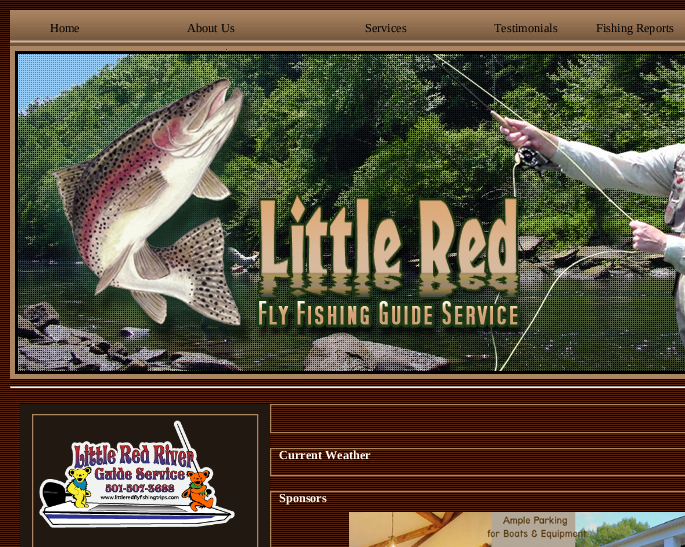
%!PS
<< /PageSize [685 547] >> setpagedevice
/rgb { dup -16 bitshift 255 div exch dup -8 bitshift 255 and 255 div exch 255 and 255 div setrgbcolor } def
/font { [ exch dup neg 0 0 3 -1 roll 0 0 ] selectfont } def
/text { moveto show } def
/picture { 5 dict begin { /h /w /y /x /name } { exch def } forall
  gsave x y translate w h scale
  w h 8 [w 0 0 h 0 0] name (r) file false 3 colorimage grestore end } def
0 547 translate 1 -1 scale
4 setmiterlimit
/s1 { /LiberationSerif-Regular 12.25 font 16#000000 rgb } def
/s2 { /LiberationSerif-Bold 12.25 font 16#FFFFFF rgb } def
16#FFFFFF rgb
0 0 685 547 rectfill
(pic1.raw) 0 0 685 547 picture
(pic2.raw) 10 10 109 36 picture
s1
(Home) 50 32 text
(pic3.raw) 119 10 182 36 picture
(About Us) 187 32 text
(pic4.raw) 301 10 170 36 picture
(Services) 365 32 text
(pic2.raw) 471 10 109 36 picture
(Testimonials) 494 32 text
(pic5.raw) 580 10 105 36 picture
(Fishing Reports) 596 32 text
(pic6.raw) 10 46 675 333 picture
16#9F9F9F rgb
10 386 675 1 rectfill
16#EEEEEE rgb
10 387 675 1 rectfill
16#9F9F9F rgb
10 386 1 2 rectfill
16#211811 rgb
20 404 250 143 rectfill
16#AA8562 rgb
32.5 414.5 225 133 rectstroke
(pic7.raw) 39 420 196 108 picture
270.5 404.5 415 28 rectstroke
270.5 448.5 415 27 rectstroke
s2
(Current Weather) 279 459 text
16#AA8562 rgb
270.5 491.5 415 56 rectstroke
s2
(Sponsors) 279 502 text
(pic8.raw) 349 512 336 35 picture
showpage
